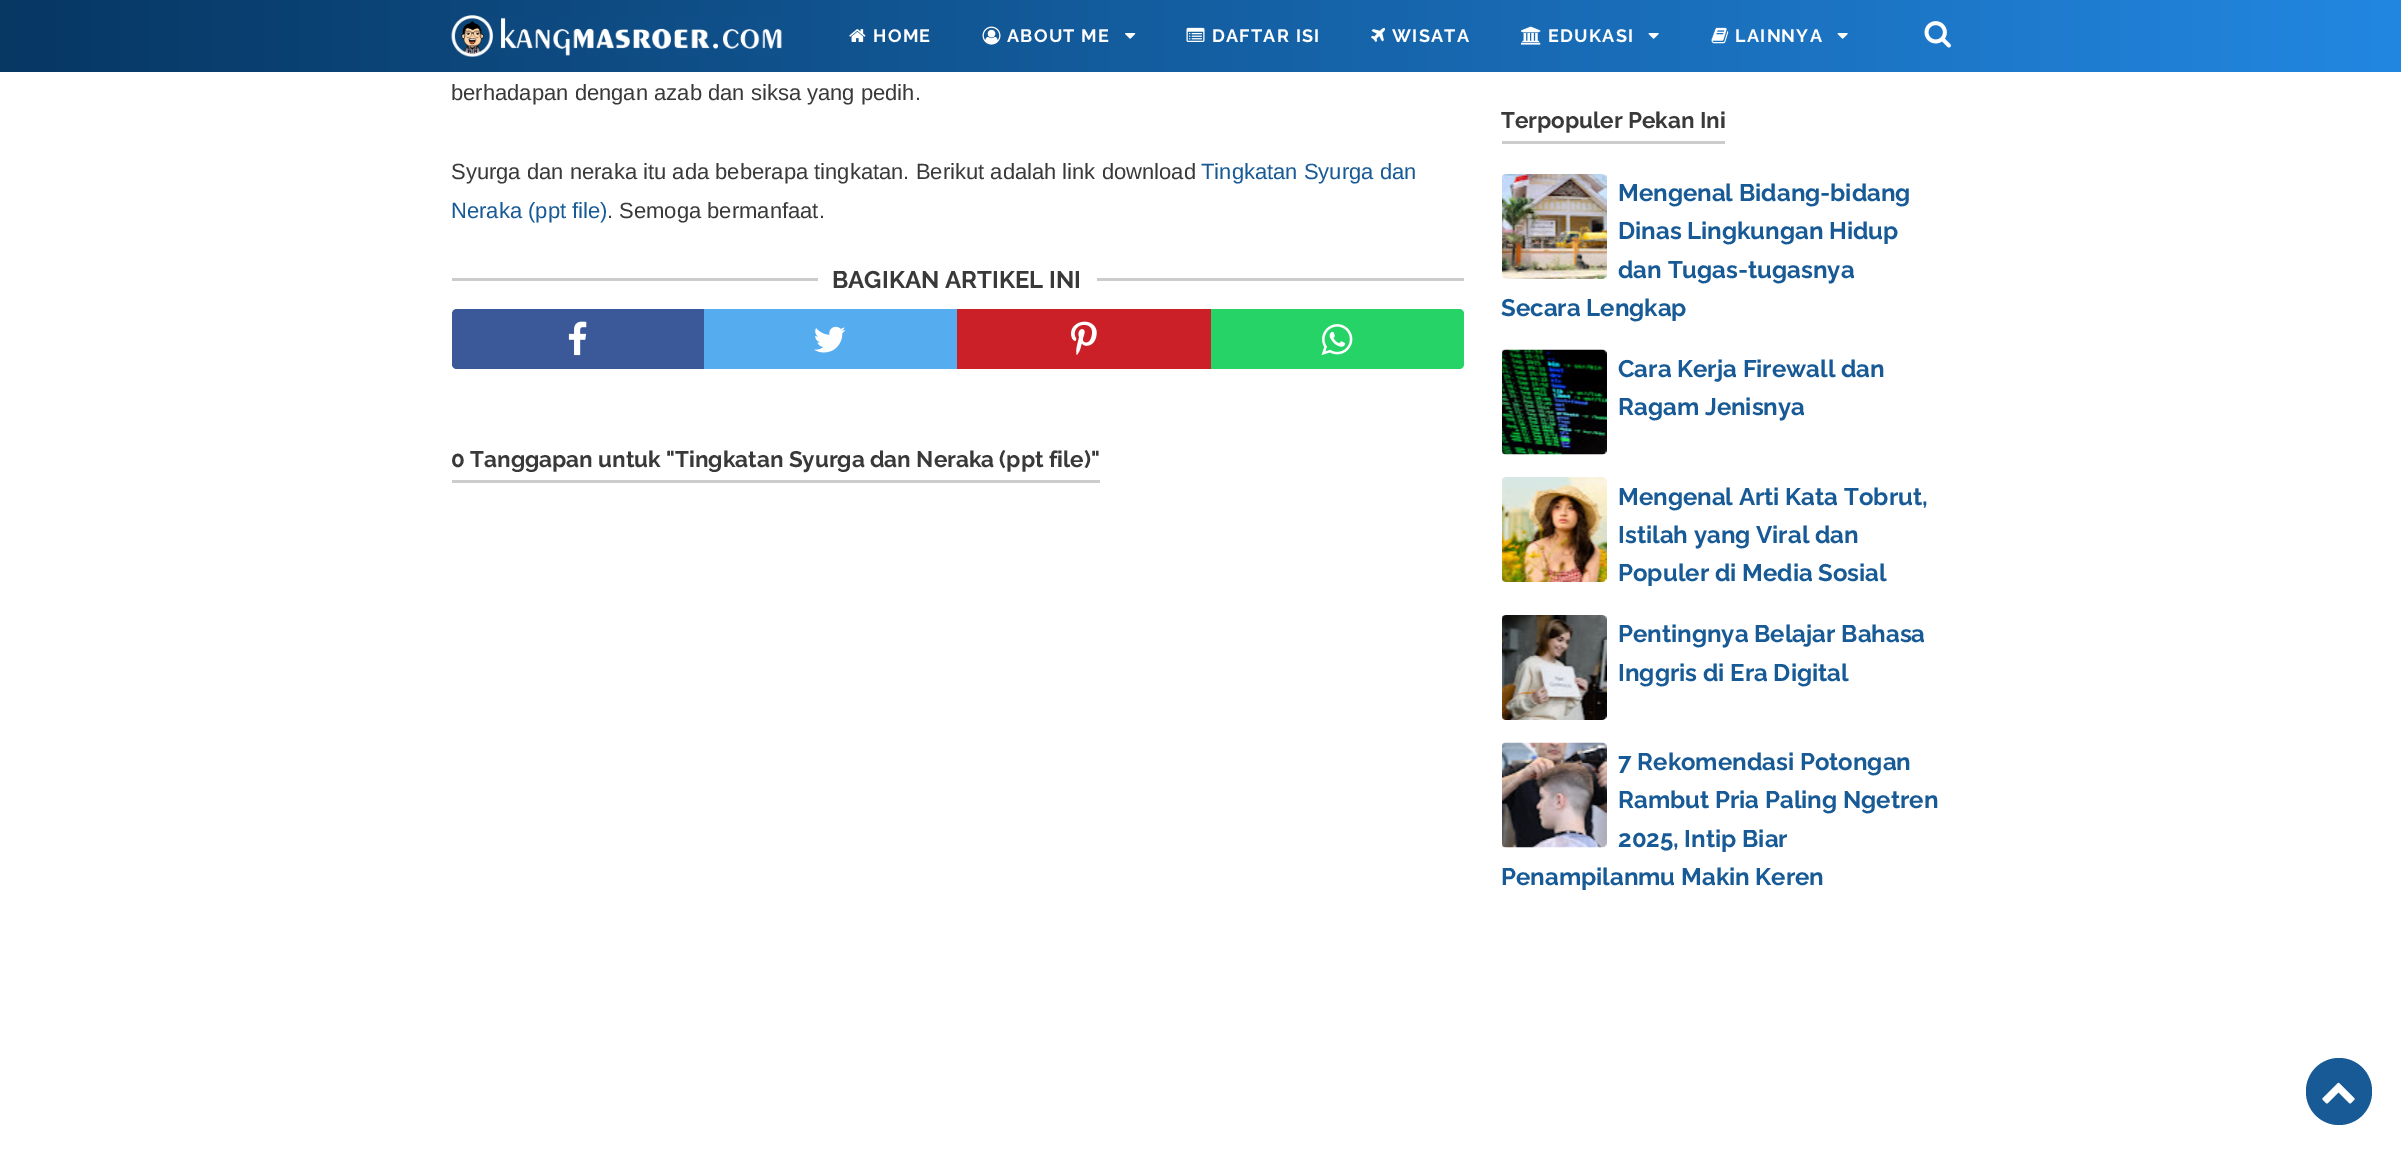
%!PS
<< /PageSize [2401 1150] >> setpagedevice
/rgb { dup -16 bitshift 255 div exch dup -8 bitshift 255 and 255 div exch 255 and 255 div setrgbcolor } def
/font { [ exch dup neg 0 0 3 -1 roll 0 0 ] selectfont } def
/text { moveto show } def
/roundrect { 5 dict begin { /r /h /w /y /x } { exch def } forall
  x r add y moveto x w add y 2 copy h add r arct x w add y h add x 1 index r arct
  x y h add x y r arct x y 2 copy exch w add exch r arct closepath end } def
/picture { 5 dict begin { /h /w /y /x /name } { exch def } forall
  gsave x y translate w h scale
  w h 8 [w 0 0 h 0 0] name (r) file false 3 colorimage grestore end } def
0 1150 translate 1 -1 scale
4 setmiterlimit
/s1 { /LiberationSans-Regular 22 font 16#393939 rgb } def
/s2 { /LiberationSans-Regular 22 font 16#175A96 rgb } def
/s3 { /Raleway-Bold 24 font 16#393939 rgb } def
/s4 { /Raleway-Bold 22.5 font 16#393939 rgb } def
/s5 { /Raleway-Bold 24 font 16#175A96 rgb } def
16#FFFFFF rgb
0 0 2401 1150 rectfill
gsave 0 0 moveto 2401 0 lineto 2401 72 lineto 0 72 lineto closepath clip newpath
<< /ShadingType 2 /ColorSpace /DeviceRGB /Coords [0 36 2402 36] /Extend [true true] /Function << /FunctionType 2 /Domain [0 1] /C0 [0.027 0.216 0.388] /C1 [0.133 0.529 0.882] /N 1 >> >> shfill grestore
(pic1.raw) 451 15 331 42 picture
(pic2.raw) 849 29 17 13 picture
/Raleway-Bold 18 font
873 42 moveto 1.25 0 (HOME) ashow
(pic3.raw) 982 26 19 19 picture
1007 42 moveto 1.25 0 (ABOUT ME) ashow
(pic4.raw) 1125 33 11 6 picture
(pic5.raw) 1186 27 19 15 picture
1212 42 moveto 1.25 0 (DAFTAR ISI) ashow
(pic6.raw) 1371 28 14 14 picture
1392 42 moveto 1.25 0 (WISATA) ashow
(pic7.raw) 1521 26 20 19 picture
1548 42 moveto 1.25 0 (EDUKASI) ashow
(pic8.raw) 1648 33 11 6 picture
(pic9.raw) 1711 27 18 17 picture
1735 42 moveto 1.25 0 (LAINNYA) ashow
(pic10.raw) 1837 33 11 6 picture
(pic11.raw) 1924 21 27 27 picture
s1
(berhadapan dengan azab dan siksa yang pedih.) 451 100 text
(Syurga dan neraka itu ada beberapa tingkatan. Berikut adalah link download) 451 179 text
s2
(Tingkatan Syurga dan) 1201 179 text
(Neraka \(ppt file\)) 451 218 text
s1
(. Semoga bermanfaat.) 607 218 text
16#CCCCCC rgb
452 278 1012 3 rectfill
16#FFFFFF rgb
818 278 279 3 rectfill
s3
(BAGIKAN ARTIKEL INI) 832 288 text
16#3B5998 rgb
457 309 moveto 704 309 lineto 704 369 lineto 457 369 lineto 454 369 452 367 452 364 curveto 452 314 lineto 452 311 454 309 457 309 curveto closepath fill
(pic12.raw) 568 321 19 35 picture
16#55ACEE rgb
704 309 253 60 rectfill
(pic13.raw) 814 326 32 27 picture
16#CB2027 rgb
957 309 254 60 rectfill
(pic14.raw) 1071 321 26 34 picture
16#25D366 rgb
1211 309 moveto 1459 309 lineto 1462 309 1464 311 1464 314 curveto 1464 364 lineto 1464 367 1462 369 1459 369 curveto 1211 369 lineto closepath fill
(pic15.raw) 1321 324 32 32 picture
16#CCCCCC rgb
452 480 648 3 rectfill
s4
(0 Tanggapan untuk "Tingkatan Syurga dan Neraka \(ppt file\)") 451 467 text
16#CCCCCC rgb
1502 141 223 3 rectfill
s4
(Terpopuler Pekan Ini) 1501 128 text
(pic16.raw) 1502 174 105 105 picture
s5
(Mengenal Bidang-bidang) 1618 201 text
(Dinas Lingkungan Hidup) 1618 239 text
(dan Tugas-tugasnya) 1618 278 text
(Secara Lengkap) 1501 316 text
(pic17.raw) 1502 349 105 106 picture
(Cara Kerja Firewall dan) 1618 377 text
(Ragam Jenisnya) 1618 415 text
(pic18.raw) 1502 477 105 105 picture
(Mengenal Arti Kata Tobrut,) 1618 505 text
(Istilah yang Viral dan) 1618 543 text
(Populer di Media Sosial) 1618 581 text
(pic19.raw) 1502 615 105 105 picture
(Pentingnya Belajar Bahasa) 1618 642 text
(Inggris di Era Digital) 1618 681 text
(pic20.raw) 1502 742 105 106 picture
(7 Rekomendasi Potongan) 1618 770 text
(Rambut Pria Paling Ngetren) 1618 808 text
(2025, Intip Biar) 1618 847 text
(Penampilanmu Makin Keren) 1501 885 text
2306 1058 66 67 33 roundrect fill
(pic21.raw) 2322 1082 33 22 picture
showpage
